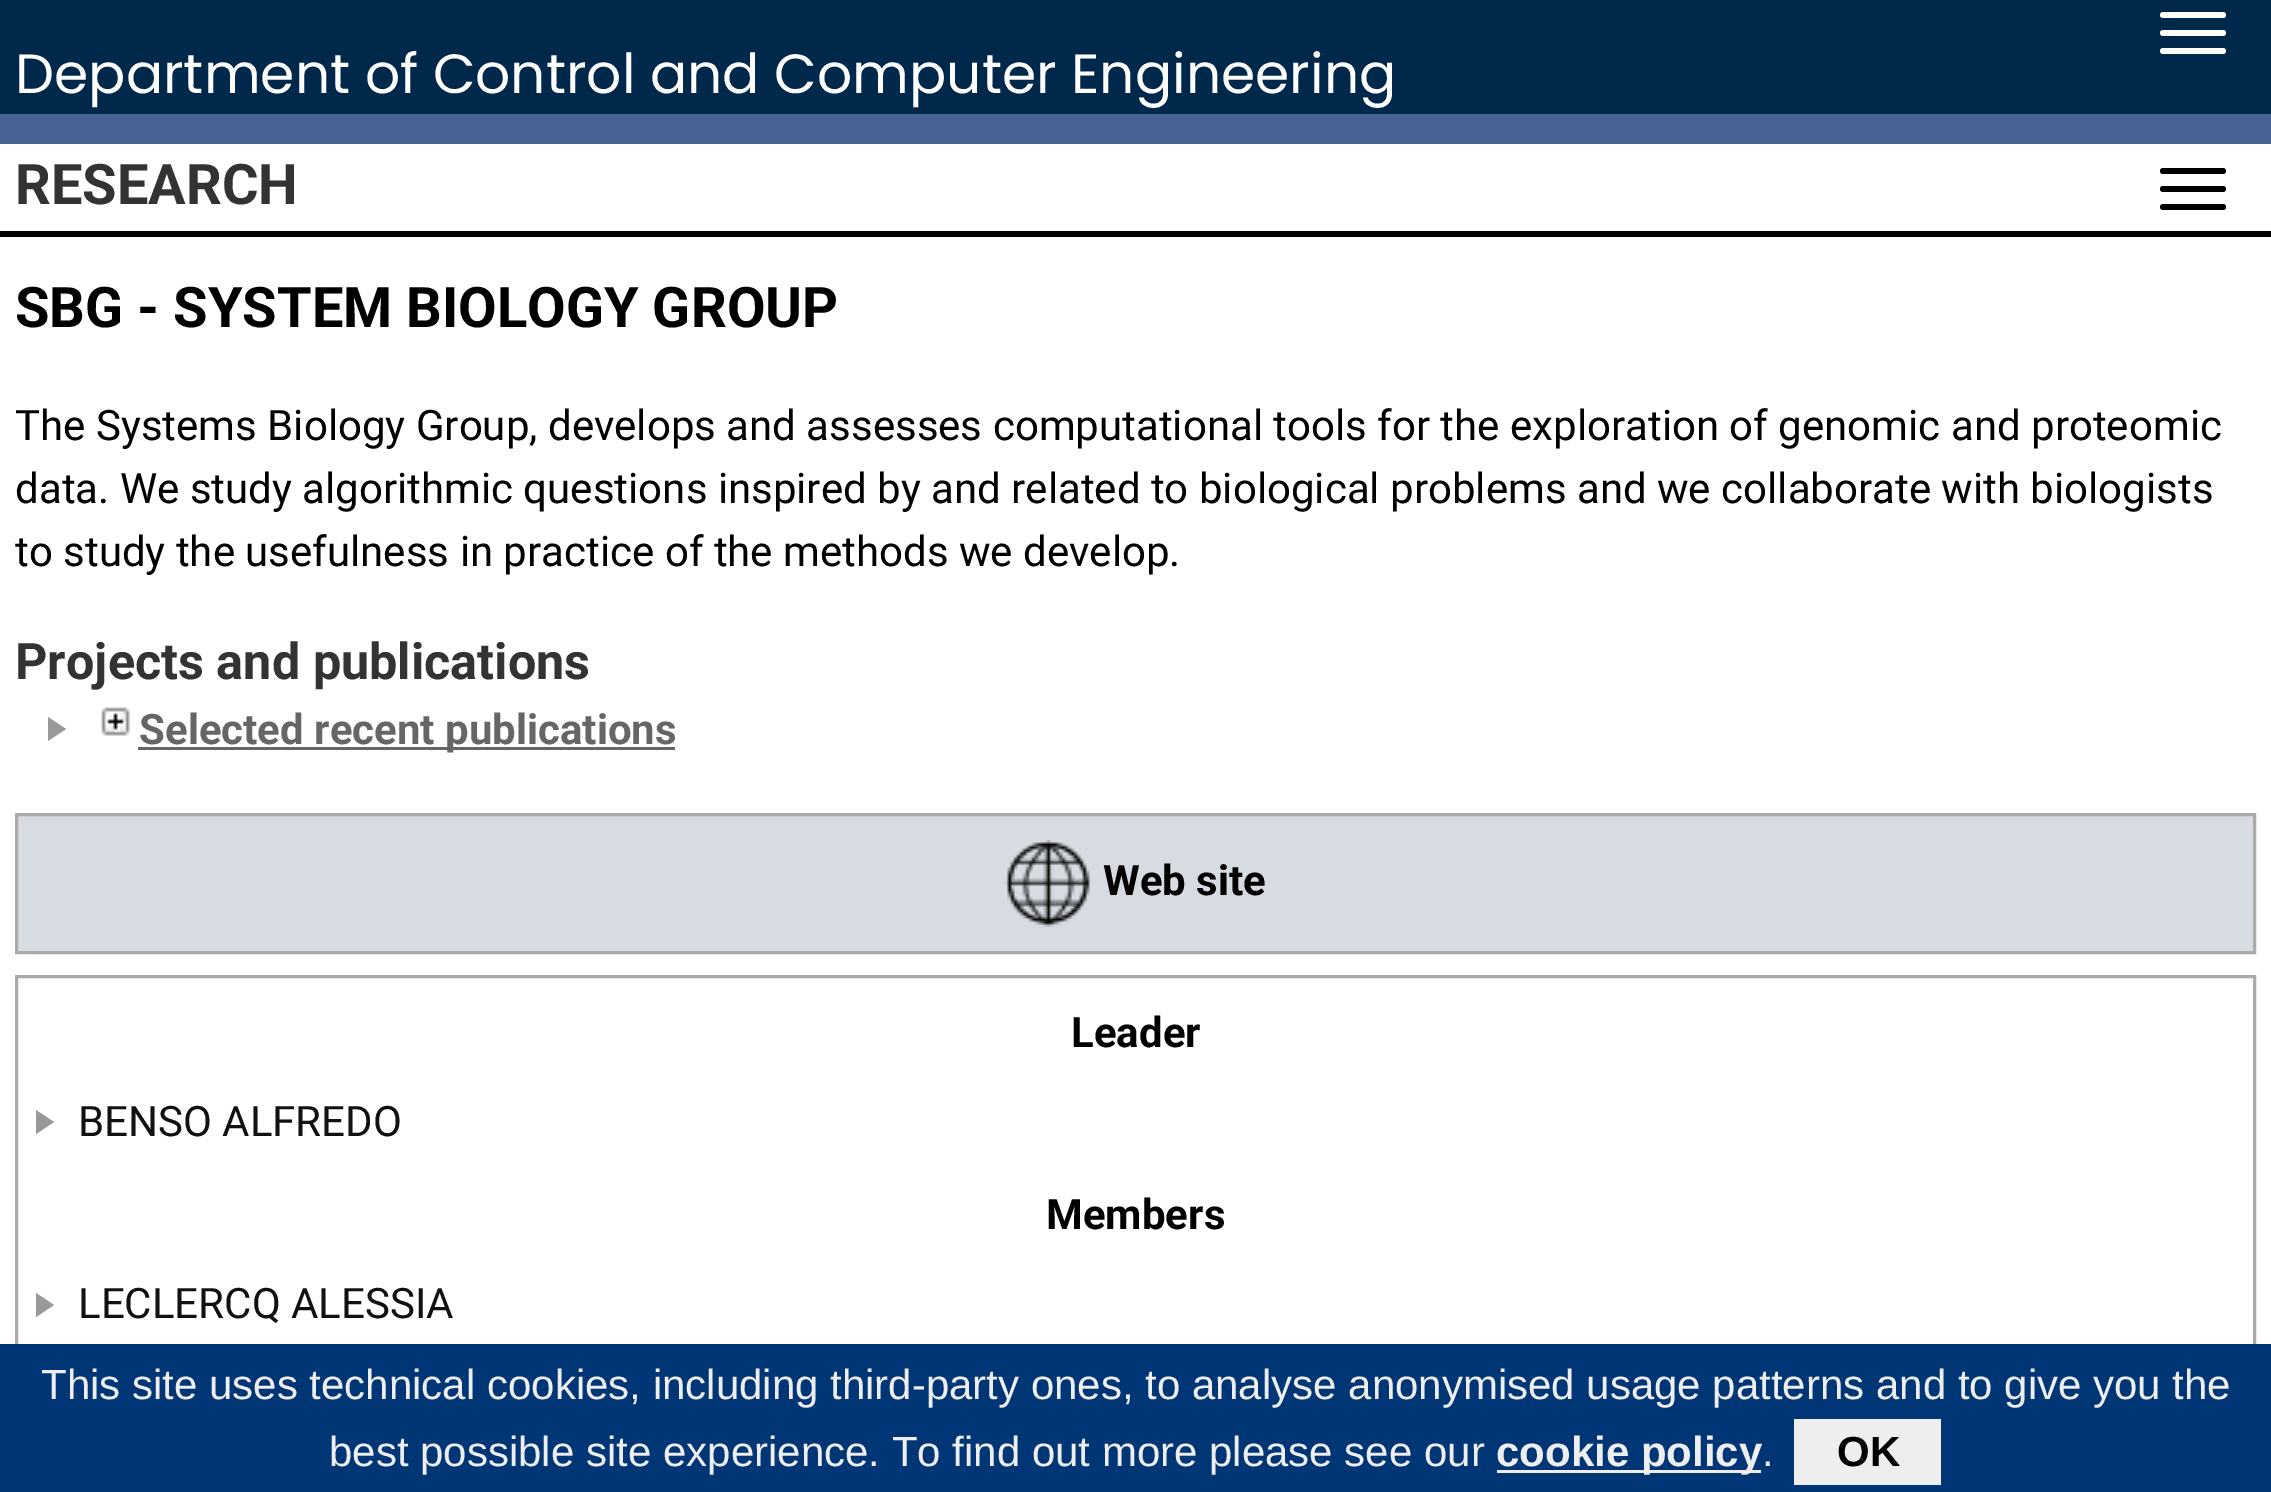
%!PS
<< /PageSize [2271 1492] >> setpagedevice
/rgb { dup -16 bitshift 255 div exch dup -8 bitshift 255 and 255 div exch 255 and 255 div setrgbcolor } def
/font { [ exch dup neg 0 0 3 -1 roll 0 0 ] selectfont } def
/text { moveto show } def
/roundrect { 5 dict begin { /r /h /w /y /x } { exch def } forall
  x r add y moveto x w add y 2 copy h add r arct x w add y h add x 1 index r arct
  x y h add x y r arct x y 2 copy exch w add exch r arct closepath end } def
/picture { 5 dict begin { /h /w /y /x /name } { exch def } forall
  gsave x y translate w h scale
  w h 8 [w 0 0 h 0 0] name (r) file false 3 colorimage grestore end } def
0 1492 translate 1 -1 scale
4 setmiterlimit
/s1 { /Roboto-Bold 56 font 16#333333 rgb } def
/s2 { /Roboto-Bold 56 font 16#000000 rgb } def
/s3 { /Roboto-Regular 42 font 16#000000 rgb } def
/s4 { /Roboto-Bold 50.4 font 16#333333 rgb } def
/s5 { /Roboto-Bold 42 font 16#666666 rgb } def
/s6 { /Roboto-Bold 42 font 16#000000 rgb } def
/s7 { /Roboto-Regular 42 font 16#111111 rgb } def
/s8 { /LiberationSans-Regular 42 font 16#EEEEEE rgb } def
/s9 { /LiberationSans-Bold 42 font 16#EEEEEE rgb } def
/s10 { /LiberationSans-Bold 42 font 16#000000 rgb } def
16#FFFFFF rgb
0 0 2271 1492 rectfill
16#00284B rgb
0 0 2271 114 rectfill
16#FFFFFF rgb
2160 12 66 6 3 roundrect fill
2160 30 66 6 3 roundrect fill
2160 48 66 6 3 roundrect fill
/Poppins-Regular 55.2 font
15 93 moveto -0.25 0 32 (Department of Control and Computer Engineering) widthshow
16#486293 rgb
0 114 2271 30 rectfill
16#000000 rgb
0 231 2271 6 rectfill
s1
(RESEARCH) 15 204 text
16#000000 rgb
2160 168 66 6 3 roundrect fill
2160 186 66 6 3 roundrect fill
2160 204 66 6 3 roundrect fill
(SBG - SYSTEM BIOLOGY GROUP) 15 327 text
s3
(The Systems Biology Group, develops and assesses computational tools for the exploration of genomic and proteomic) 15 440 text
(data. We study algorithmic questions inspired by and related to biological problems and we collaborate with biologists) 15 503 text
(to study the usefulness in practice of the methods we develop.) 15 566 text
s4
(Projects and publications) 15 679 text
16#999999 rgb
48 741 moveto 48 717 lineto 66 729 lineto closepath fill
(pic1.raw) 101 707 29 29 picture
16#666666 rgb
138 747 537 3 rectfill
s5
(Selected recent publications) 139 744 text
16#D7DCE2 rgb
16.5 814.5 moveto 2254.5 814.5 lineto 2254.5 952.5 lineto 16.5 952.5 lineto closepath gsave fill grestore
16#AAAAAA rgb
3 setlinewidth
stroke
(pic2.raw) 1005 840 85 87 picture
s6
(Web site) 1103 895 text
16#AAAAAA rgb
16.5 976.5 2238 495 rectstroke
s6
(Leader) 1071 1047 text
16#999999 rgb
36 1134 moveto 36 1110 lineto 54 1122 lineto closepath fill
s7
(BENSO ALFREDO) 78 1136 text
s6
(Members) 1046 1229 text
16#999999 rgb
36 1317 moveto 36 1293 lineto 54 1305 lineto closepath fill
s7
(LECLERCQ ALESSIA) 78 1318 text
16#003576 rgb
0 1344 2271 148 rectfill
s8
(This site uses technical cookies, including third-party ones, to analyse anonymised usage patterns and to give you the) 41 1399 text
(best possible site experience. To find out more please see our) 329 1466 text
1497 1470 264 3 rectfill
s9
(cookie policy) 1496 1466 text
s8
(.) 1762 1466 text
1794 1419 147 66 rectfill
s10
(OK) 1837 1466 text
showpage
